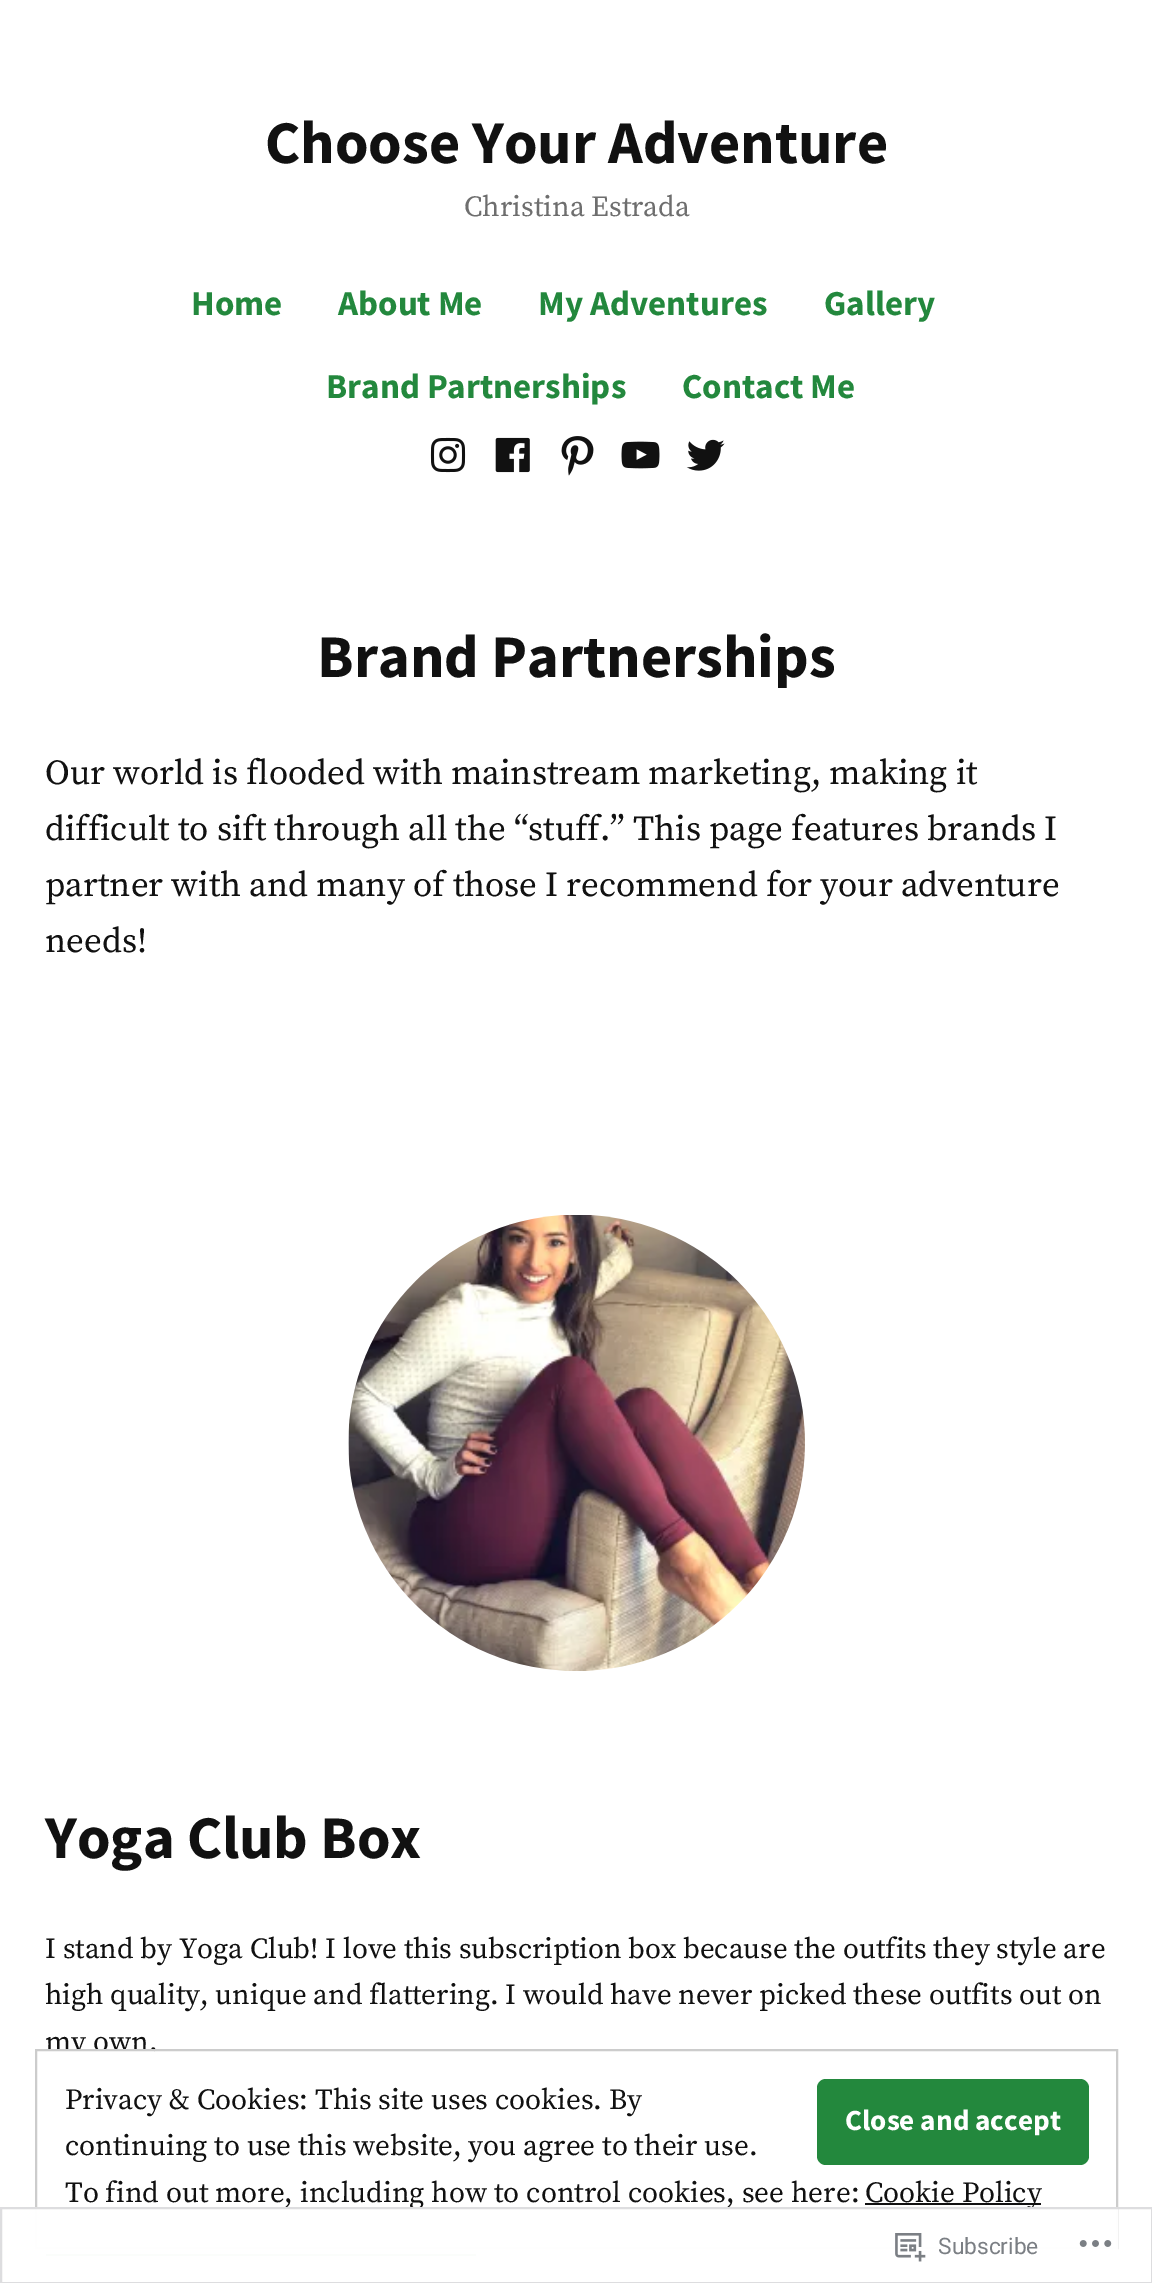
%!PS
<< /PageSize [1152 2283] /PageUsesTransparency true >> setpagedevice
/rgb { dup -16 bitshift 255 div exch dup -8 bitshift 255 and 255 div exch 255 and 255 div setrgbcolor } def
/font { [ exch dup neg 0 0 3 -1 roll 0 0 ] selectfont } def
/text { moveto show } def
/alpha { dup .setfillconstantalpha .setstrokeconstantalpha } def
/roundrect { 5 dict begin { /r /h /w /y /x } { exch def } forall
  x r add y moveto x w add y 2 copy h add r arct x w add y h add x 1 index r arct
  x y h add x y r arct x y 2 copy exch w add exch r arct closepath end } def
/picture { 5 dict begin { /h /w /y /x /name } { exch def } forall
  gsave x y translate w h scale
  w h 8 [w 0 0 h 0 0] name (r) file false 3 colorimage grestore end } def
0 .pushpdf14devicefilter
0 2283 translate 1 -1 scale
4 setmiterlimit
/s1 { /SourceSansPro-Bold 60.5 font 16#111111 rgb } def
/s2 { /SourceSerifPro-Regular 29.2 font 16#6E6E6E rgb } def
/s3 { /SourceSansPro-Bold 35 font 16#23883D rgb } def
/s4 { /SourceSerifPro-Regular 35 font 16#111111 rgb } def
/s5 { /SourceSerifPro-Regular 29.05 font 16#111111 rgb } def
/s6 { /SourceSerifPro-Regular 29.2 font 16#111111 rgb } def
/s7 { /SourceSansPro-Bold 29.2 font 16#FFFFFF rgb } def
/s8 { /Roboto-Regular 22.75 font 16#7B7F84 rgb } def
16#FFFFFF rgb
0 0 1152 2283 rectfill
s1
(Choose Your Adventure) 265 163 text
s2
(Christina Estrada) 464 216 text
s3
(Home) 191 315 text
(About Me) 338 315 text
(My Adventures) 538 315 text
(Gallery) 824 315 text
(Brand Partnerships) 326 398 text
(Contact Me) 682 398 text
(pic1.raw) 430 437 36 36 picture
(pic2.raw) 495 437 35 36 picture
(pic3.raw) 561 436 33 40 picture
(pic4.raw) 621 441 39 28 picture
(pic5.raw) 686 439 39 32 picture
s1
(Brand Partnerships) 317 677 text
s4
(Our world is flooded with mainstream marketing, making it) 45 784 text
(difficult to sift through all the “stuff.” This page features brands I) 45 840 text
(partner with and many of those I recommend for your adventure) 45 896 text
(needs!) 45 952 text
(pic6.raw) 348 1215 457 456 picture
s1
(Yoga Club Box) 45 1858 text
s5
(I stand by Yoga Club! I love this subscription box because the outfits they style are) 45 1958 text
(high quality, unique and flattering. I would have never picked these outfits out on) 45 2004 text
(my own.) 45 2051 text
16#23883D rgb
46 2254 430 2 rectfill
16#FFFFFF rgb
70 2051 84 8 rectfill
16#CCCCCC rgb
2 setlinewidth
36 2050 1081 198 rectstroke
s6
(Privacy & Cookies: This site uses cookies. By) 65 2109 text
16#23883D rgb
817 2079 272 86 9 roundrect fill
s7
(Close and accept) 845 2130 text
s6
(continuing to use this website, you agree to their use.) 65 2155 text
(To find out more, including how to control cookies, see here:) 65 2202 text
865 2203 176 2 rectfill
(Cookie Policy) 865 2202 text
0.98 alpha
16#FFFFFF rgb
35 2207 1083 49 rectfill
16#DCDCDE rgb
1 2208 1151 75 rectstroke
1 alpha
(pic7.raw) 895 2233 31 29 picture
s8
(Subscribe) 938 2254 text
(pic8.raw) 1079 2240 33 7 picture
.poppdf14devicefilter showpage
